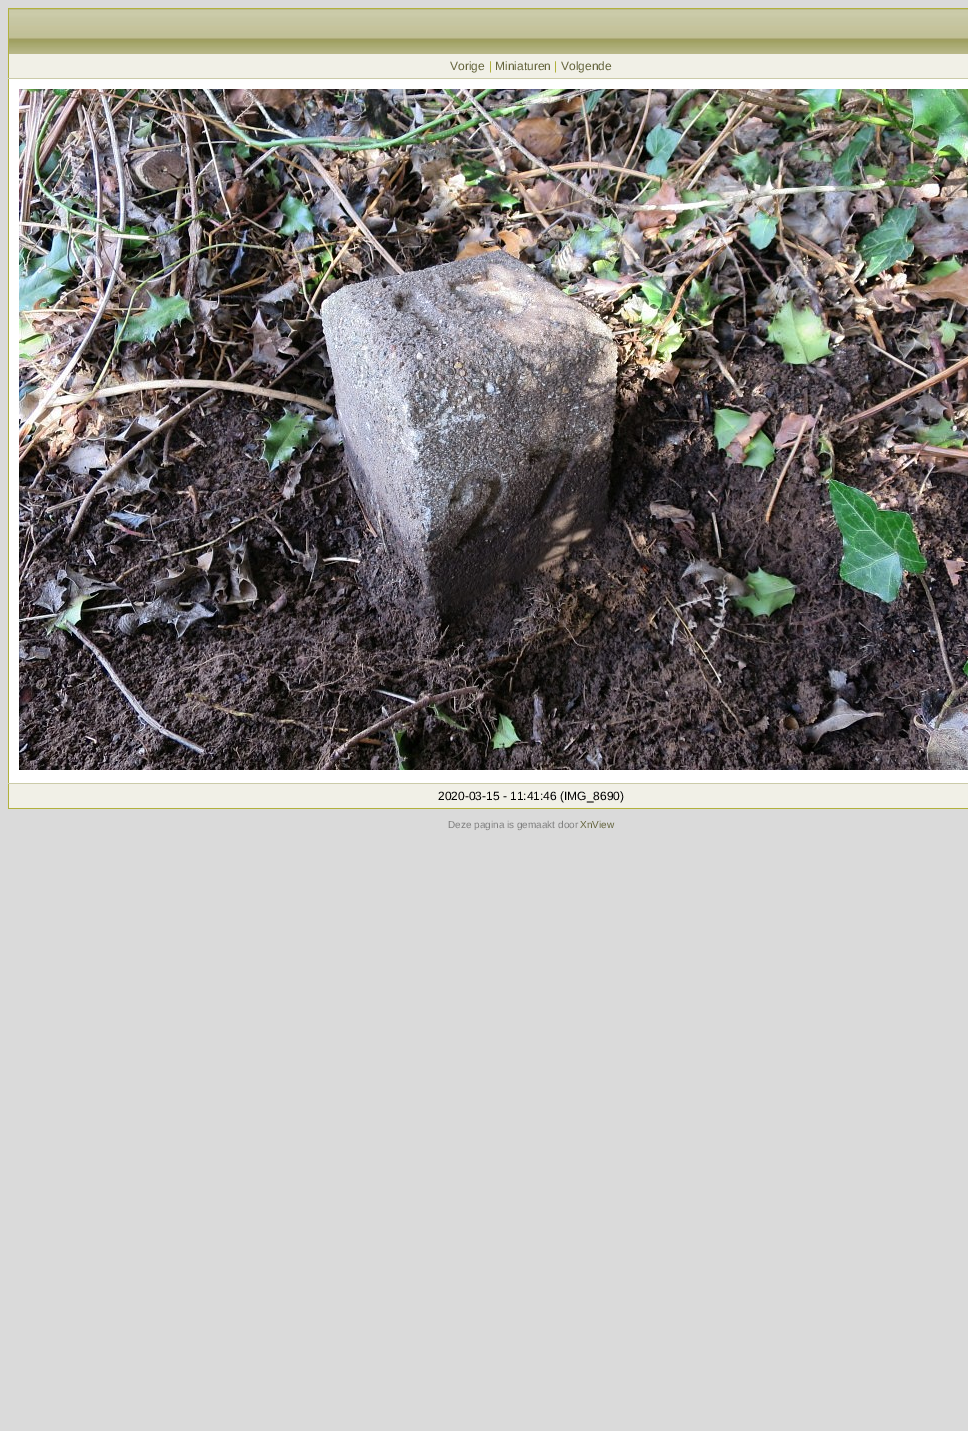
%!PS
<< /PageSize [968 1431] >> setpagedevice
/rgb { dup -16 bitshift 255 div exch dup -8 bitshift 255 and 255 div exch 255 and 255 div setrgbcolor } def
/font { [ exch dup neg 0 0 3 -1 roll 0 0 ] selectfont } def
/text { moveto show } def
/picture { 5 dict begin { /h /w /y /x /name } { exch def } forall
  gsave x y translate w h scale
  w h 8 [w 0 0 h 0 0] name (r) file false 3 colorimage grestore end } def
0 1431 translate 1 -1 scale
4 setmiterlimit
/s1 { /LiberationSans-Regular 12 font 16#64643C rgb } def
/s2 { /LiberationSans-Regular 12 font 16#B1B13C rgb } def
/s3 { /LiberationSans-Regular 12 font 16#000000 rgb } def
/s4 { /LiberationSans-Regular 10 font 16#808080 rgb } def
/s5 { /LiberationSans-Regular 10 font 16#64643C rgb } def
16#DADADA rgb
0 0 968 1431 rectfill
16#FFFFFF rgb
9 79 959 704 rectfill
16#B1B13C rgb
8 8 960 1 rectfill
8 808 960 1 rectfill
8 8 1 801 rectfill
(pic1.raw) 9 9 959 45 picture
16#F1F0E7 rgb
9 54 959 24 rectfill
16#CBCBA9 rgb
8 78 960 1 rectfill
s1
(Vorige) 450 70 text
s2
(|) 489 70 text
s1
(Miniaturen) 495 70 text
s2
(|) 554 70 text
s1
(Volgende) 561 70 text
(pic2.raw) 19 89 949 681 picture
16#F1F0E7 rgb
9 784 959 24 rectfill
16#CBCBA9 rgb
8 783 960 1 rectfill
s3
(2020-03-15 - 11:41:46 \(IMG_8690\)) 438 800 text
s4
(Deze pagina is gemaakt door) 448 828 text
s5
(XnView) 580 828 text
showpage
